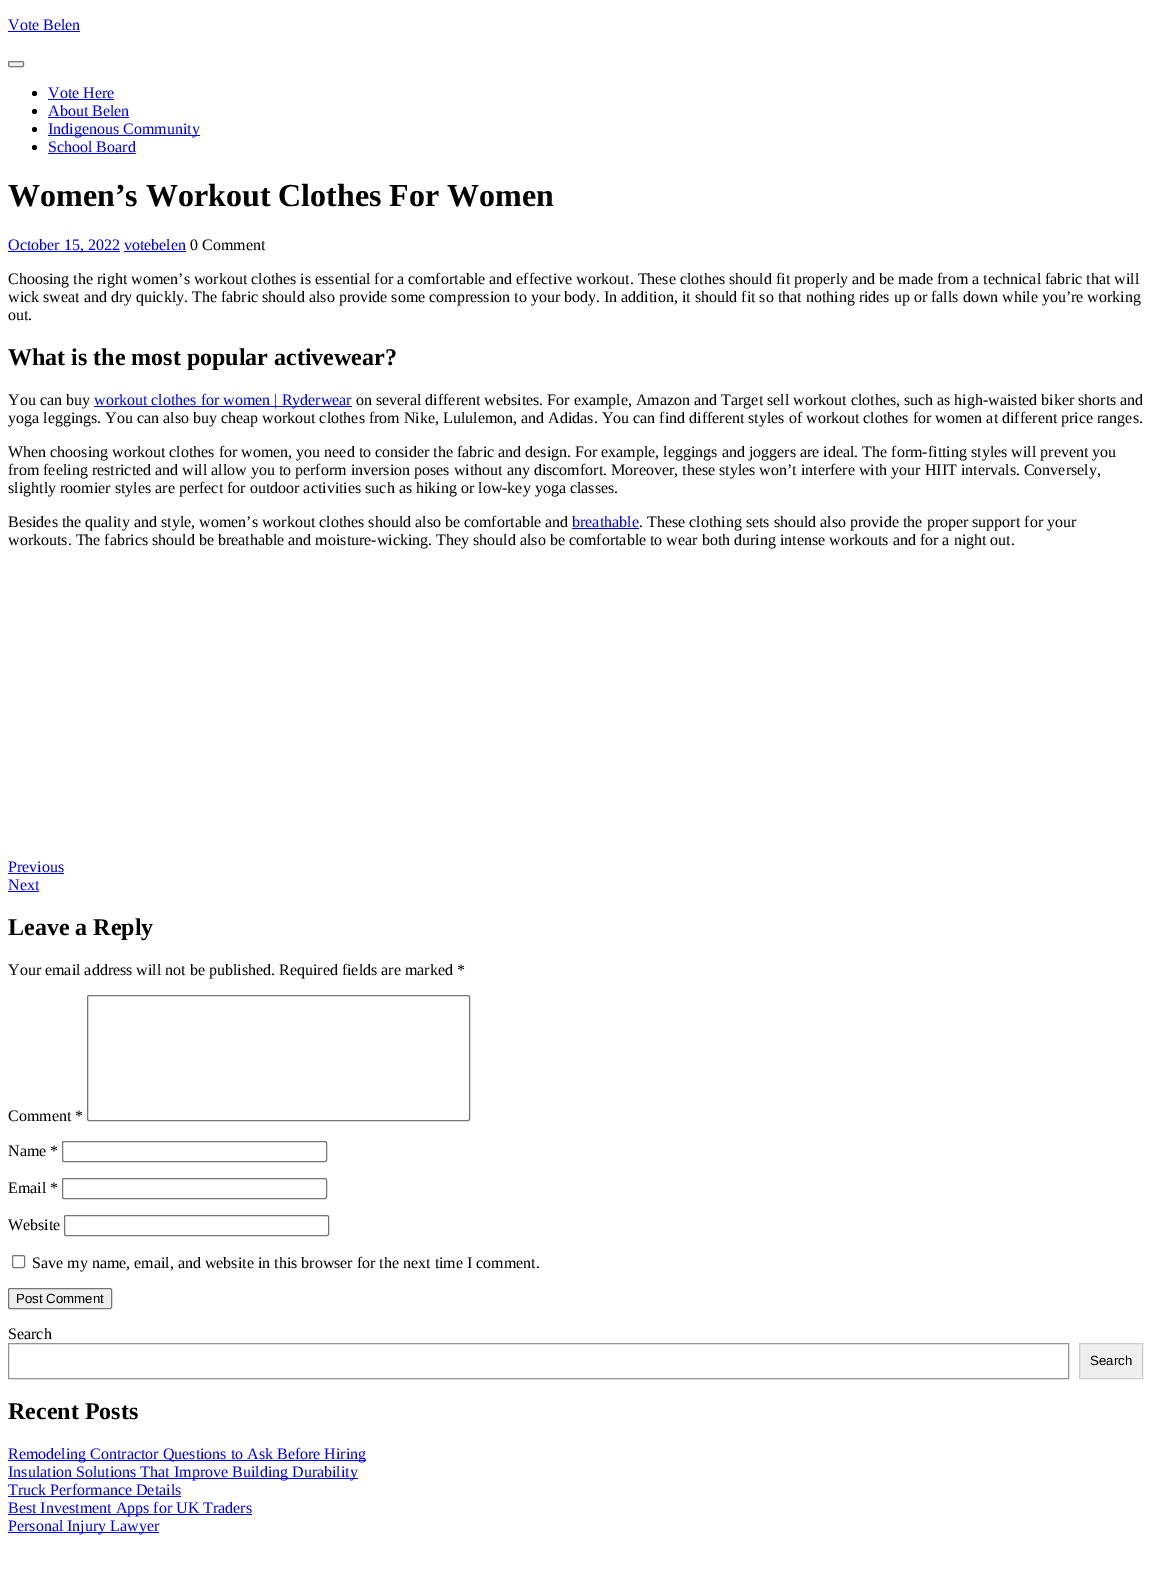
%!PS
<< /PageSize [1151 1575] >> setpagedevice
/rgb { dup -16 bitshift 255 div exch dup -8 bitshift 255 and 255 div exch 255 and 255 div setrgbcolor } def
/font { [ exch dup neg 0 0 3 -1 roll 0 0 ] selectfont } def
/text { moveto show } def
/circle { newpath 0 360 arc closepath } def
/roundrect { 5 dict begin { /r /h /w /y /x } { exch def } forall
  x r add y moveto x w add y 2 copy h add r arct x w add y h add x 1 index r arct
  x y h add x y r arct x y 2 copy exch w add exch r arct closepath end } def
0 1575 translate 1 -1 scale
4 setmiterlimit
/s1 { /LiberationSerif-Regular 16 font 16#0000EE rgb } def
/s2 { /LiberationSerif-Bold 32 font 16#000000 rgb } def
/s3 { /LiberationSerif-Regular 16 font 16#000000 rgb } def
/s4 { /LiberationSerif-Bold 24 font 16#000000 rgb } def
/s5 { /LiberationSans-Regular 13.25 font 16#000000 rgb } def
16#FFFFFF rgb
0 0 1151 1575 rectfill
s1
(Vote Belen) 8 30 text
8 31 72 1 rectfill
16#EFEFEF rgb
8.5 61.5 15 5 1.5 roundrect gsave fill grestore
16#767676 rgb
stroke
16#000000 rgb
34.5 93.5 2.5 circle fill
s1
(Vote Here) 48 98 text
48 99 66 1 rectfill
16#000000 rgb
34.5 111.5 2.5 circle fill
s1
(About Belen) 48 116 text
48 117 81 1 rectfill
16#000000 rgb
34.5 129.5 2.5 circle fill
16#0000EE rgb
48 135 152 1 rectfill
(Indigenous Community) 48 134 text
16#000000 rgb
34.5 147.5 2.5 circle fill
s1
(School Board) 48 152 text
48 153 88 1 rectfill
s2
(Women’s Workout Clothes For Women) 8 206 text
16#0000EE rgb
8 251 112 1 rectfill
s1
(October 15, 2022 votebelen) 8 250 text
s3
(0 Comment) 190 250 text
16#0000EE rgb
124 251 62 1 rectfill
s3
(Choosing the right women’s workout clothes is essential for a comfortable and effective workout. These clothes should fit properly and be made from a technical fabric that will) 8 284 text
(wick sweat and dry quickly. The fabric should also provide some compression to your body. In addition, it should fit so that nothing rides up or falls down while you’re working) 8 302 text
(out.) 8 320 text
s4
(What is the most popular activewear?) 8 365 text
s3
(You can buy) 8 405 text
16#0000EE rgb
94 406 258 1 rectfill
(workout clothes for women | Ryderwear) 94 405 text
s3
(on several different websites. For example, Amazon and Target sell workout clothes, such as high-waisted biker shorts and) 356 405 text
(yoga leggings. You can also buy cheap workout clothes from Nike, Lululemon, and Adidas. You can find different styles of workout clothes for women at different price ranges.) 8 423 text
(When choosing workout clothes for women, you need to consider the fabric and design. For example, leggings and joggers are ideal. The form-fitting styles will prevent you) 8 457 text
(from feeling restricted and will allow you to perform inversion poses without any discomfort. Moreover, these styles won’t interfere with your HIIT intervals. Conversely,) 8 475 text
(slightly roomier styles are perfect for outdoor activities such as hiking or low-key yoga classes.) 8 493 text
(Besides the quality and style, women’s workout clothes should also be comfortable and) 8 527 text
s1
(breathable) 572 527 text
572 528 67 1 rectfill
s3
(. These clothing sets should also provide the proper support for your) 639 527 text
(workouts. The fabrics should be breathable and moisture-wicking. They should also be comfortable to wear both during intense workouts and for a night out.) 8 545 text
s1
(Previous) 8 872 text
8 873 56 1 rectfill
(Next) 8 890 text
8 891 31 1 rectfill
s4
(Leave a Reply) 8 935 text
s3
(Your email address will not be published. Required fields are marked *) 8 975 text
(Comment *) 8 1121 text
16#767676 rgb
87.5 995.5 382 125 1.5 roundrect stroke
s3
(Name *) 8 1156 text
16#767676 rgb
62.5 1141.5 264 20 1.5 roundrect stroke
s3
(Email *) 8 1193 text
16#767676 rgb
62.5 1178.5 264 20 1.5 roundrect stroke
s3
(Website) 8 1230 text
16#767676 rgb
64.5 1215.5 264 20 1.5 roundrect stroke
12.5 1255.5 12 12 1.5 roundrect stroke
s3
(Save my name, email, and website in this browser for the next time I comment.) 32 1268 text
16#EFEFEF rgb
8.5 1288.5 103 20 1.5 roundrect gsave fill grestore
16#767676 rgb
stroke
s5
(Post Comment) 16 1303 text
s3
(Search) 8 1339 text
16#949494 rgb
8.5 1343.5 1060 35 rectstroke
16#EFEFEF rgb
1079.5 1343.5 moveto 1142.5 1343.5 lineto 1142.5 1378.5 lineto 1079.5 1378.5 lineto closepath gsave fill grestore
16#CCCCCC rgb
stroke
s5
(Search) 1090 1365 text
s4
(Recent Posts) 8 1419 text
16#0000EE rgb
8 1460 358 1 rectfill
s1
(Remodeling Contractor Questions to Ask Before Hiring) 8 1459 text
8 1478 350 1 rectfill
(Insulation Solutions That Improve Building Durability) 8 1477 text
(Truck Performance Details) 8 1495 text
8 1496 173 1 rectfill
8 1514 244 1 rectfill
(Best Investment Apps for UK Traders) 8 1513 text
8 1532 151 1 rectfill
(Personal Injury Lawyer) 8 1531 text
showpage
